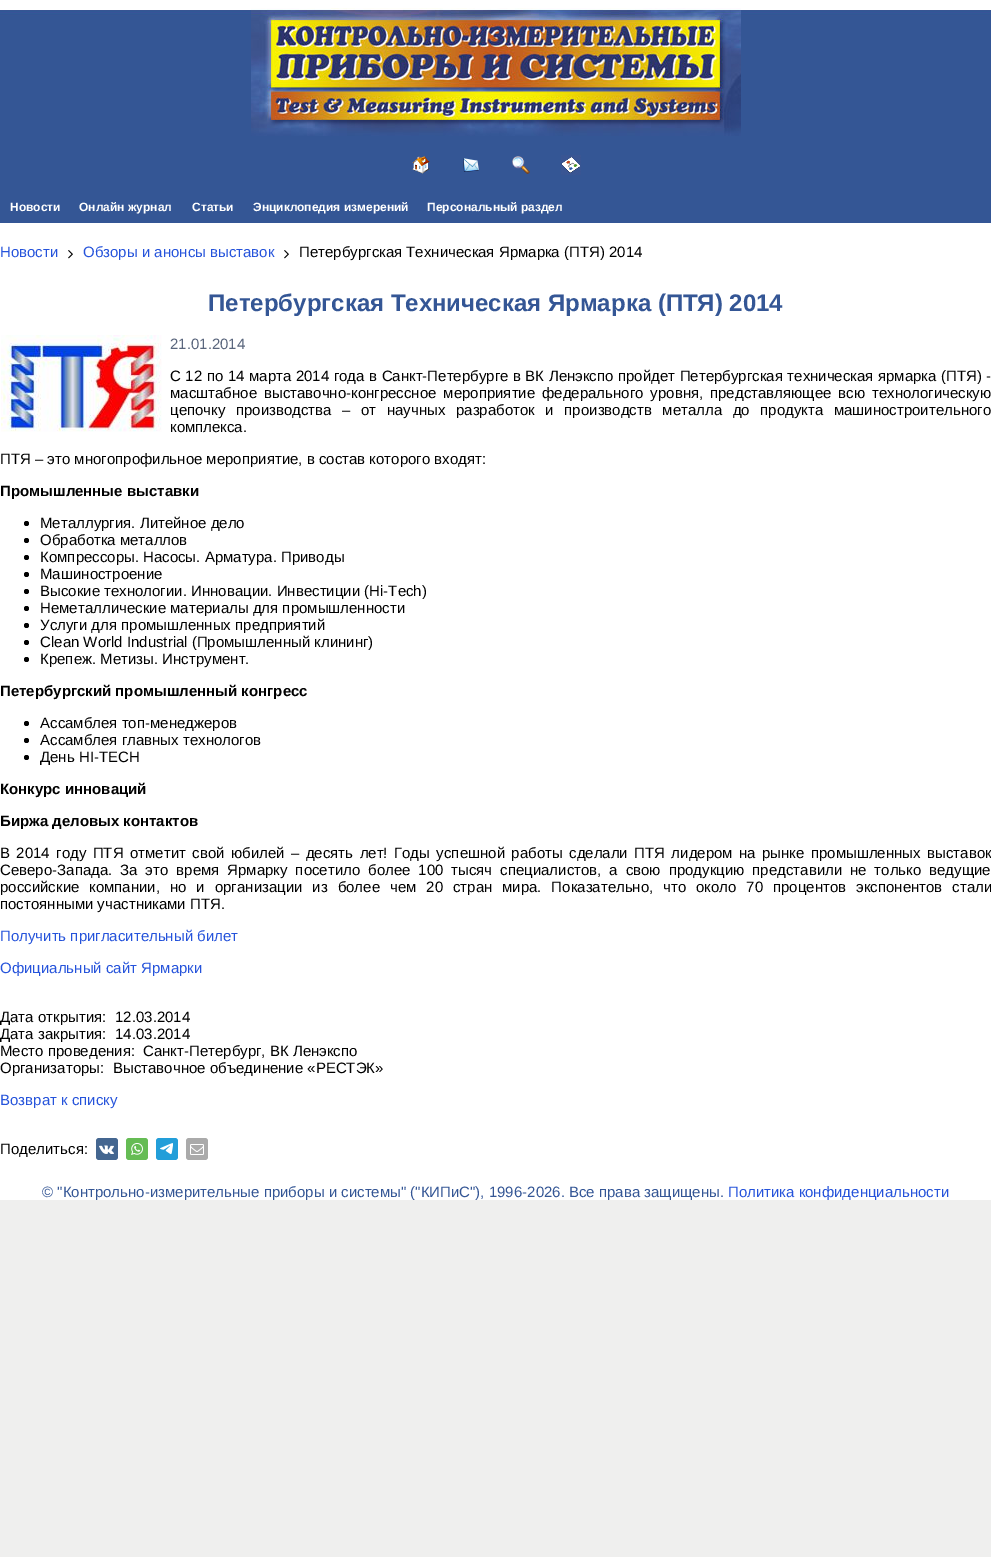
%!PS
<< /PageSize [991 1557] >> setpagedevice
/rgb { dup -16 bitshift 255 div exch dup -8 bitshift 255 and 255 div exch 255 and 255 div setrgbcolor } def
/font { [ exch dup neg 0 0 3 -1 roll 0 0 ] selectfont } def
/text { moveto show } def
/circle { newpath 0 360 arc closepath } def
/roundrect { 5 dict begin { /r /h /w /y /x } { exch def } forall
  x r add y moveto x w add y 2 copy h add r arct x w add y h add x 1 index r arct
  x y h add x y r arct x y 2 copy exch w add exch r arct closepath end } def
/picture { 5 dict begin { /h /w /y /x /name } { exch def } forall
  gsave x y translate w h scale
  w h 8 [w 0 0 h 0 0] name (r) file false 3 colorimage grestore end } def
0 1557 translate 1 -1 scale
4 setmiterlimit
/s1 { /LiberationSans-Bold 12 font 16#FFFFFF rgb } def
/s2 { /LiberationSans-Regular 15 font 16#2553DB rgb } def
/s3 { /LiberationSans-Regular 15 font 16#000000 rgb } def
/s4 { /LiberationSans-Bold 24 font 16#345695 rgb } def
/s5 { /LiberationSans-Regular 15 font 16#5A667D rgb } def
/s6 { /LiberationSans-Bold 15 font 16#000000 rgb } def
/s7 { /LiberationSans-Regular 15 font 16#345695 rgb } def
16#EFEFEE rgb
0 0 991 1557 rectfill
16#FFFFFF rgb
0 0 991 1200 rectfill
(pic1.raw) 0 10 991 130 picture
(pic2.raw) 251 8 490 128 picture
16#345695 rgb
0 140 991 83 rectfill
(pic3.raw) 412 156 18 18 picture
(pic4.raw) 463 158 16 14 picture
(pic5.raw) 512 156 18 18 picture
(pic6.raw) 561 155 20 20 picture
s1
(Новости) 10 211 text
(Онлайн журнал) 79 211 text
(Статьи) 192 211 text
(Энциклопедия измерений) 253 211 text
(Персональный раздел) 427 211 text
s2
(Новости) 0 257 text
(pic7.raw) 68 250 5 9 picture
(Обзоры и анонсы выставок) 83 257 text
(pic7.raw) 284 250 5 9 picture
s3
(Петербургская Техническая Ярмарка \(ПТЯ\) 2014) 299 257 text
s4
(Петербургская Техническая Ярмарка \(ПТЯ\) 2014) 208 311 text
(pic8.raw) 1 335 161 97 picture
s5
(21.01.2014) 170 349 text
16#000000 rgb
170 381 moveto 0.4 0 32 (С 12 по 14 марта 2014 года в Санкт-Петербурге в ВК Ленэкспо пройдет Петербургская техническая ярмарка \(ПТЯ\) -) widthshow
170 398 moveto 2.75 0 32 (масштабное выставочно-конгрессное мероприятие федерального уровня, представляющее всю технологическую) widthshow
170 415 moveto 6.4 0 32 (цепочку производства – от научных разработок и производств металла до продукта машиностроительного) widthshow
(комплекса.) 170 432 text
(ПТЯ – это многопрофильное мероприятие, в состав которого входят:) 0 464 text
s6
(Промышленные выставки) 0 496 text
26.5 523.5 2.5 circle fill
s3
(Металлургия. Литейное дело) 40 528 text
26.5 540.5 2.5 circle fill
(Обработка металлов) 40 545 text
26.5 557.5 2.5 circle fill
(Компрессоры. Насосы. Арматура. Приводы) 40 562 text
26.5 574.5 2.5 circle fill
(Машиностроение) 40 579 text
26.5 591.5 2.5 circle fill
(Высокие технологии. Инновации. Инвестиции \(Hi-Tech\)) 40 596 text
26.5 608.5 2.5 circle fill
(Неметаллические материалы для промышленности) 40 613 text
26.5 625.5 2.5 circle fill
(Услуги для промышленных предприятий) 40 630 text
26.5 642.5 2.5 circle fill
(Clean World Industrial \(Промышленный клининг\)) 40 647 text
26.5 659.5 2.5 circle fill
(Крепеж. Метизы. Инструмент.) 40 664 text
s6
(Петербургский промышленный конгресс) 0 696 text
26.5 723.5 2.5 circle fill
s3
(Ассамблея топ-менеджеров) 40 728 text
26.5 740.5 2.5 circle fill
(Ассамблея главных технологов) 40 745 text
26.5 757.5 2.5 circle fill
(День HI-TECH) 40 762 text
s6
(Конкурс инноваций) 0 794 text
(Биржа деловых контактов) 0 826 text
/LiberationSans-Regular 15 font
0 858 moveto 2.25 0 32 (В 2014 году ПТЯ отметит свой юбилей – десять лет! Годы успешной работы сделали ПТЯ лидером на рынке промышленных выставок) widthshow
0 875 moveto 3.75 0 32 (Северо-Запада. За это время Ярмарку посетило более 100 тысяч специалистов, а свою продукцию представили не только ведущие) widthshow
0 892 moveto 5.75 0 32 (российские компании, но и организации из более чем 20 стран мира. Показательно, что около 70 процентов экспонентов стали) widthshow
(постоянными участниками ПТЯ.) 0 909 text
s2
(Получить пригласительный билет) 0 941 text
(Официальный сайт Ярмарки) 0 973 text
s3
(Дата открытия:) 0 1022 text
(12.03.2014) 115 1022 text
(Дата закрытия:) 0 1039 text
(14.03.2014) 115 1039 text
(Место проведения:) 0 1056 text
(Санкт-Петербург, ВК Ленэкспо) 143 1056 text
(Организаторы:) 0 1073 text
(Выставочное объединение «РЕСТЭК») 113 1073 text
s2
(Возврат к списку) 0 1105 text
s3
(Поделиться:) 0 1154 text
16#446690 rgb
96 1138 22 22 3 roundrect fill
(pic9.raw) 99 1145 15 9 picture
16#65BC54 rgb
126 1138 22 22 3 roundrect fill
(pic10.raw) 131 1143 12 12 picture
16#229ED9 rgb
156 1138 22 22 3 roundrect fill
(pic11.raw) 160 1143 13 12 picture
16#AAAAAA rgb
186 1138 22 22 3 roundrect fill
(pic12.raw) 190 1144 14 11 picture
s7
(© "Контрольно-измерительные приборы и системы" \("КИПиС"\), 1996-2026. Все права защищены.) 42 1197 text
s2
(Политика конфиденциальности) 728 1197 text
showpage
